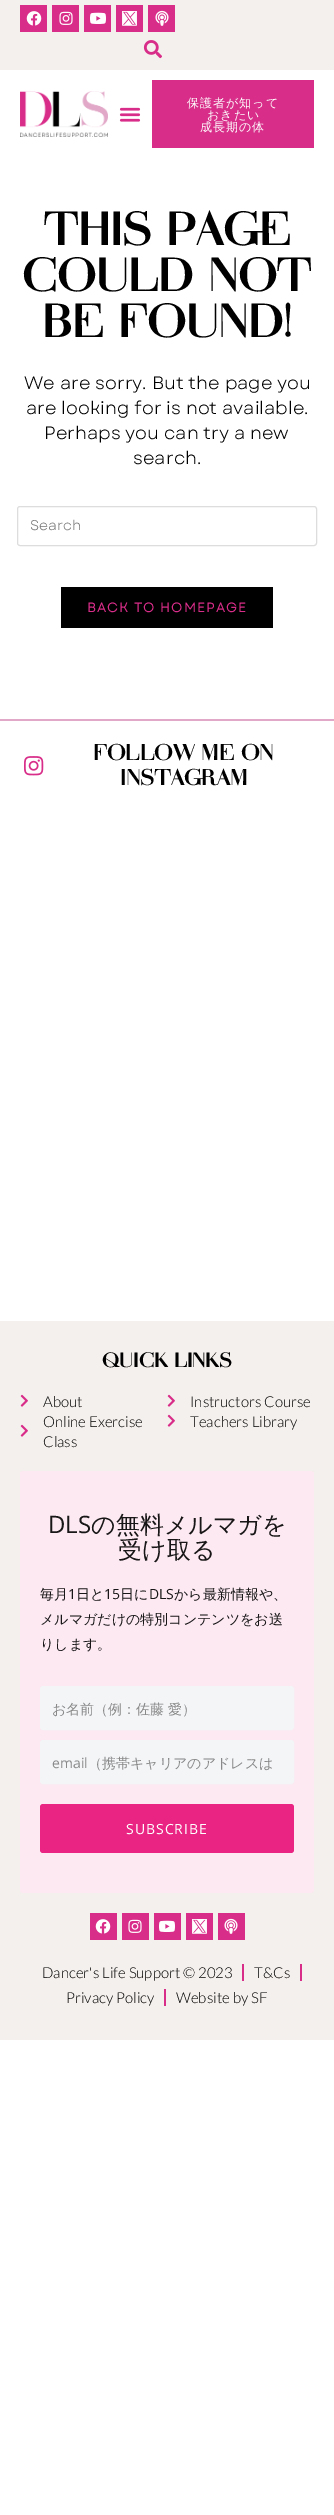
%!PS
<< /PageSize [334 2515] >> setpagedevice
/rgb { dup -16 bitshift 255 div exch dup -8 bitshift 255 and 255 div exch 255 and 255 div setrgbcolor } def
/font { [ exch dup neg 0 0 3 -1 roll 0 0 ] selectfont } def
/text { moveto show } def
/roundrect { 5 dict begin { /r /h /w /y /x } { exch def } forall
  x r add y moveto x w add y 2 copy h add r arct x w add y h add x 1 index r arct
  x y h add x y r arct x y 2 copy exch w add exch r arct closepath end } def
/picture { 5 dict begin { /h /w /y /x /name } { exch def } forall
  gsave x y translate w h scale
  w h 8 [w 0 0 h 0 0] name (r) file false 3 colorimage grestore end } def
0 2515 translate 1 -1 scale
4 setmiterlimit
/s1 { /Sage-Bold 46 font 16#000000 rgb } def
/s2 { /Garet-Regular 18 font 16#000000 rgb } def
/s3 { /Garet-Regular 14 font 16#757575 rgb } def
/s4 { /Sage-Bold 22 font 16#000000 rgb } def
/s5 { /Sage-Bold 20 font 16#000000 rgb } def
/s6 { /Lato-Light 15 font 16#000000 rgb } def
/s7 { /OpenSans-Regular 24 font 16#181617 rgb } def
/s8 { /WenQuanYiZenHei-Medium 24 font 16#181617 rgb } def
/s9 { /WenQuanYiZenHei-Medium 14 font 16#181617 rgb } def
/s10 { /OpenSans-Regular 14 font 16#181617 rgb } def
/s11 { /OpenSans-Regular 14 font 16#898989 rgb } def
/s12 { /WenQuanYiZenHei-Medium 14 font 16#898989 rgb } def
16#FFFFFF rgb
0 0 334 2515 rectfill
16#F4F0ED rgb
0 0 334 70 rectfill
16#D82D89 rgb
20 5 27 27 rectfill
(pic1.raw) 26 11 16 15 picture
52 5 27 27 rectfill
(pic2.raw) 59 11 14 14 picture
84 5 27 27 rectfill
(pic3.raw) 90 12 16 12 picture
116 5 27 27 rectfill
(pic4.raw) 122 11 15 15 picture
148 5 27 27 rectfill
(pic5.raw) 155 10 14 16 picture
(pic6.raw) 143 40 19 19 picture
(pic7.raw) 20 91 88 46 picture
(pic8.raw) 119 107 22 15 picture
152 80 162 68 rectfill
/WenQuanYiZenHei-Medium 12 font
16#FFFFFF rgb
187 107 moveto 1 0 (保護者が知って) ashow
207 119 moveto 1 0 (おきたい) ashow
200 131 moveto 1 0 (成長期の体) ashow
s1
(THIS PAGE) 43 245 text
(COULD NOT) 22 291 text
(BE FOUND!) 42 337 text
s2
(We are sorry. But the page you) 24 389 text
(are looking for is not available.) 26 414 text
(Perhaps you can try a new) 44 439 text
(search.) 133 464 text
16#DDDDDD rgb
17.5 506.5 299 39 2.5 roundrect stroke
s3
(Search) 30 530 text
16#000000 rgb
61 587 212 41 rectfill
/Garet-Bold 13 font
16#D82D89 rgb
87 612 moveto 1.25 0 (BACK TO HOMEPAGE) ashow
16#E1A8C7 rgb
0 719 334 2 rectfill
(pic9.raw) 24 756 20 20 picture
s4
(FOLLOW ME ON) 93 760 text
(INSTAGRAM) 120 785 text
16#F4F0ED rgb
0 1321 334 719 rectfill
s5
(QUICK LINKS) 102 1367 text
(pic10.raw) 20 1394 8 13 picture
s6
(About) 43 1407 text
(pic10.raw) 20 1424 8 13 picture
(Online Exercise) 43 1427 text
(Class) 43 1447 text
(pic10.raw) 167 1394 8 13 picture
(Instructors Course) 190 1407 text
(pic10.raw) 167 1414 8 13 picture
(Teachers Library) 190 1427 text
16#FCE9F2 rgb
20 1471 294 422 3 roundrect fill
s7
(DLS) 48 1533 text
s8
(の無料メルマガを) 91 1533 text
(受け取る) 118 1558 text
s9
(毎月) 40 1599 text
s10
(1) 68 1599 text
s9
(日と) 76 1599 text
s10
(15) 104 1599 text
s9
(日に) 120 1599 text
s10
(DLS) 149 1599 text
s9
(から最新情報や、) 174 1599 text
(メルマガだけの特別コンテンツをお送) 40 1624 text
(りします。) 40 1649 text
16#F3F5F7 rgb
41 1687 252 42 2 roundrect gsave fill grestore
2 setlinewidth
stroke
16#898989 rgb
52 1714 moveto -1 0 32 (お名前（例：佐藤 愛）) widthshow
16#F3F5F7 rgb
41 1741 252 42 2 roundrect gsave fill grestore
stroke
s11
(email) 52 1768 text
s12
(（携帯キャリアのアドレスは) 88 1768 text
16#EA2482 rgb
40 1804 254 49 3 roundrect fill
/OpenSans-Regular 14 font
16#FFFFFF rgb
126 1834 moveto 1 0 (SUBSCRIBE) ashow
16#D82D89 rgb
90 1913 27 27 rectfill
(pic1.raw) 95 1919 16 15 picture
122 1913 27 27 rectfill
(pic2.raw) 128 1919 14 14 picture
154 1913 27 27 rectfill
(pic3.raw) 159 1920 16 12 picture
186 1913 27 27 rectfill
(pic4.raw) 192 1919 15 15 picture
218 1913 27 27 rectfill
(pic5.raw) 224 1918 14 16 picture
s6
(Dancer's Life Support © 2023) 42 1978 text
16#D82D89 rgb
242 1964 2 17 rectfill
s6
(T&Cs) 254 1978 text
16#D82D89 rgb
300 1964 2 17 rectfill
s6
(Privacy Policy) 66 2003 text
16#D82D89 rgb
164 1989 2 17 rectfill
s6
(Website by SF) 176 2003 text
showpage
